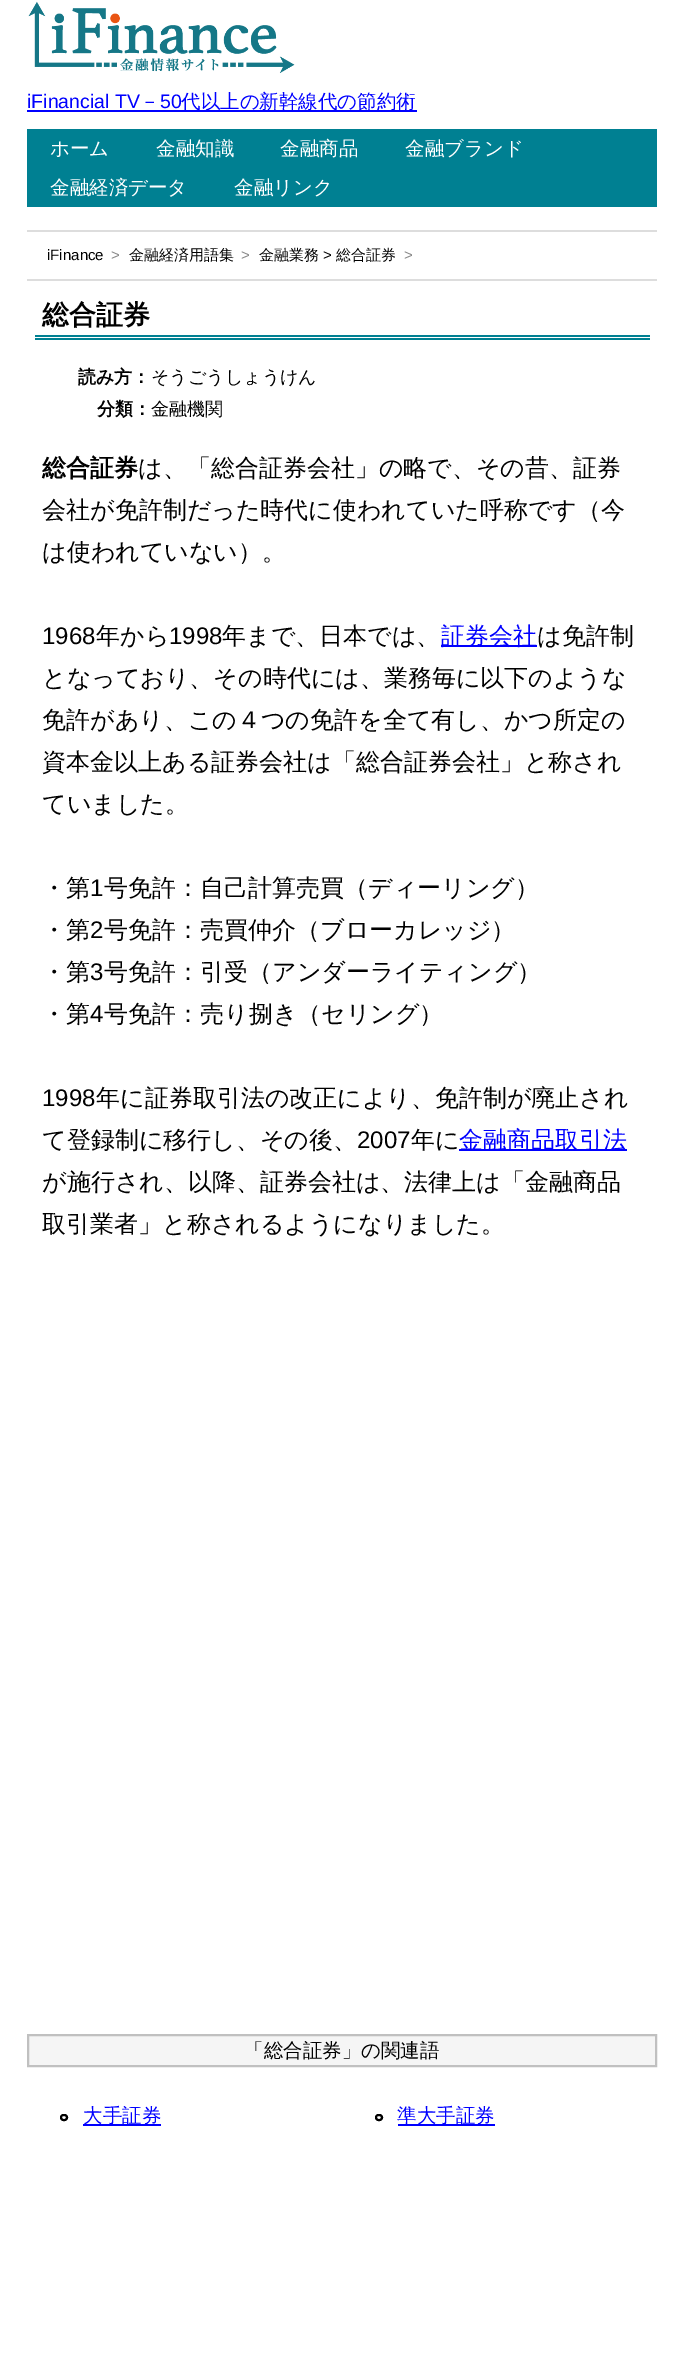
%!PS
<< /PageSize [683 2365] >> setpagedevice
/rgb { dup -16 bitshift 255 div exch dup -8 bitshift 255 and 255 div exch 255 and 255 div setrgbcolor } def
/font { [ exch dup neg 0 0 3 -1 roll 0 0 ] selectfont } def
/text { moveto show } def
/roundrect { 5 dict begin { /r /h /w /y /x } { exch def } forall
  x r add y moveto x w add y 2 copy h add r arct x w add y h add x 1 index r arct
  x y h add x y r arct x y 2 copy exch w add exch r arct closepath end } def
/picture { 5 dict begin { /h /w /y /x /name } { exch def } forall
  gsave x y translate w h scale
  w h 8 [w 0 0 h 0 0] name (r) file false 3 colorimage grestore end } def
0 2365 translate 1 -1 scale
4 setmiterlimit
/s1 { /LiberationSans-Regular 19.5 font 16#0000FF rgb } def
/s2 { /WenQuanYiZenHei-Medium 19.5 font 16#0000FF rgb } def
/s3 { /WenQuanYiZenHei-Medium 19.5 font 16#FFFFFF rgb } def
/s4 { /LiberationSans-Regular 15 font 16#000000 rgb } def
/s5 { /LiberationSans-Regular 15 font 16#888888 rgb } def
/s6 { /WenQuanYiZenHei-Medium 15 font 16#000000 rgb } def
/s7 { /WenQuanYiZenHei-Bold 27 font 16#000000 rgb } def
/s8 { /WenQuanYiZenHei-Bold 18 font 16#000000 rgb } def
/s9 { /WenQuanYiZenHei-Medium 18 font 16#000000 rgb } def
/s10 { /WenQuanYiZenHei-Bold 24 font 16#000000 rgb } def
/s11 { /WenQuanYiZenHei-Medium 24 font 16#000000 rgb } def
/s12 { /LiberationSans-Regular 24 font 16#000000 rgb } def
/s13 { /WenQuanYiZenHei-Medium 24 font 16#0000FF rgb } def
/s14 { /WenQuanYiZenHei-Medium 19.5 font 16#000000 rgb } def
16#FFFFFF rgb
0 0 683 2365 rectfill
(pic1.raw) 28 1 267 72 picture
s1
(iFinancial TV) 27 108 text
s2
(－) 140 108 text
27 110 390 2 rectfill
s1
(50) 160 108 text
s2
(代以上の新幹線代の節約術) 181 108 text
16#008092 rgb
27 129 630 78 rectfill
s3
(ホーム) 50 155 text
(金融知識) 156 155 text
(金融商品) 280 155 text
(金融ブランド) 405 155 text
(金融経済データ) 50 194 text
(金融リンク) 234 194 text
16#DDDDDD rgb
27 230 630 2 rectfill
27 279 630 2 rectfill
s4
(iFinance) 47 260 text
s5
(>) 111 260 text
s6
(金融経済用語集) 129 260 text
s5
(>) 241 260 text
s6
(金融業務) 259 260 text
s4
(>) 323 260 text
s6
(総合証券) 336 260 text
s5
(>) 404 260 text
16#008092 rgb
35 335 615 2 rectfill
35 338 615 2 rectfill
s7
(総合証券) 42 324 text
s8
(読み方：) 78 383 text
s9
(そうごうしょうけん) 151 383 text
s8
(分類：) 97 415 text
s9
(金融機関) 151 415 text
s10
(総合証券) 42 476 text
s11
(は、「総合証券会社」の略で、その昔、証券) 138 476 text
(会社が免許制だった時代に使われていた呼称です（今) 42 518 text
(は使われていない）。) 42 560 text
s12
(1968) 42 644 text
s11
(年から) 96 644 text
s12
(1998) 169 644 text
s11
(年まで、日本では、) 222 644 text
16#0000FF rgb
441 645 96 2 rectfill
(証券会社) 441 644 text
s11
(は免許制) 537 644 text
(となっており、その時代には、業務毎に以下のような) 42 686 text
(免許があり、この４つの免許を全て有し、かつ所定の) 42 728 text
(資本金以上ある証券会社は「総合証券会社」と称され) 42 770 text
(ていました。) 42 812 text
(・第) 42 896 text
s12
(1) 90 896 text
s11
(号免許：自己計算売買（ディーリング）) 104 896 text
(・第) 42 938 text
s12
(2) 90 938 text
s11
(号免許：売買仲介（ブローカレッジ）) 104 938 text
(・第) 42 980 text
s12
(3) 90 980 text
s11
(号免許：引受（アンダーライティング）) 104 980 text
(・第) 42 1022 text
s12
(4) 90 1022 text
s11
(号免許：売り捌き（セリング）) 104 1022 text
s12
(1998) 42 1106 text
s11
(年に証券取引法の改正により、免許制が廃止され) 96 1106 text
(て登録制に移行し、その後、) 42 1148 text
s12
(2007) 357 1148 text
s11
(年に) 411 1148 text
16#0000FF rgb
459 1149 168 2 rectfill
(金融商品取引法) 459 1148 text
s11
(が施行され、以降、証券会社は、法律上は「金融商品) 42 1190 text
(取引業者」と称されるようになりました。) 42 1232 text
16#F5F5F5 rgb
28 2035 moveto 656 2035 lineto 656 2066 lineto 28 2066 lineto closepath gsave fill grestore
16#C0C0C0 rgb
2 setlinewidth
stroke
s14
(「総合証券」の関連語) 244 2057 text
61 2115 6 5 2.5 roundrect stroke
16#0000FF rgb
83 2124 78 2 rectfill
(大手証券) 83 2122 text
16#000000 rgb
376 2115 6 5 2.5 roundrect stroke
16#0000FF rgb
398 2124 97 2 rectfill
(準大手証券) 397 2122 text
showpage
